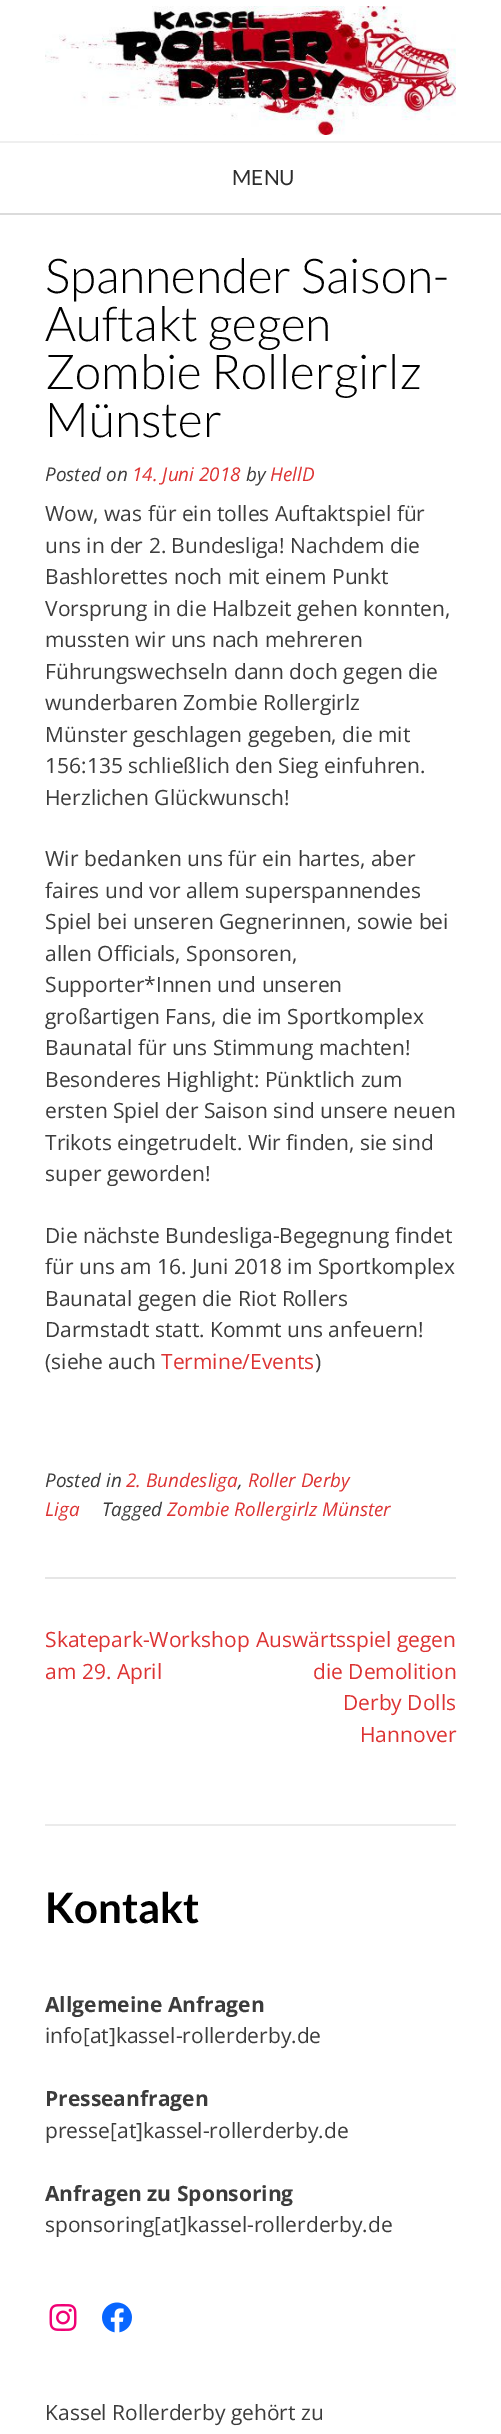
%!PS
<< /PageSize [501 2434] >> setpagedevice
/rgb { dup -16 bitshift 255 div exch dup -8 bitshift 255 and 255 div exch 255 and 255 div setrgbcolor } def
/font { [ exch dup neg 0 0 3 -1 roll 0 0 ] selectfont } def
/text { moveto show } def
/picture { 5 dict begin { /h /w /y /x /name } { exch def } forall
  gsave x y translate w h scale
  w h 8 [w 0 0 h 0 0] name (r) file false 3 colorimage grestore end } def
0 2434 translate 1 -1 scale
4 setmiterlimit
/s1 { /Lato-Regular 21 font 16#2D2D2D rgb } def
/s2 { /Lato-Light 48 font 16#000000 rgb } def
/s3 { /OpenSans-Italic 18.9 font 16#3C3C3C rgb } def
/s4 { /OpenSans-Italic 18.9 font 16#DD3333 rgb } def
/s5 { /OpenSans-Regular 21 font 16#3C3C3C rgb } def
/s6 { /OpenSans-Regular 21 font 16#DD3333 rgb } def
/s7 { /Lato-Bold 42 font 16#000000 rgb } def
/s8 { /OpenSans-Bold 21 font 16#3C3C3C rgb } def
16#FFFFFF rgb
0 0 501 2434 rectfill
16#DBDBDB rgb
0 213 501 2 rectfill
(pic1.raw) 45 6 411 129 picture
16#EFEFEF rgb
0 141 501 2 rectfill
s1
(MENU) 232 185 text
16#E6E6E6 rgb
45 1577 411 2 rectfill
s2
(Spannender Saison-) 45 293 text
(Auftakt gegen) 45 341 text
(Zombie Rollergirlz) 45 389 text
(Münster) 45 437 text
s3
(Posted on) 45 481 text
s4
(14. Juni 2018) 132 481 text
s3
(by) 246 481 text
s4
(HellD) 270 481 text
s5
(Wow, was für ein tolles Auftaktspiel für) 45 521 text
(uns in der 2. Bundesliga! Nachdem die) 45 553 text
(Bashlorettes noch mit einem Punkt) 45 584 text
(Vorsprung in die Halbzeit gehen konnten,) 45 616 text
(mussten wir uns nach mehreren) 45 647 text
(Führungswechseln dann doch gegen die) 45 679 text
(wunderbaren Zombie Rollergirlz) 45 710 text
(Münster geschlagen gegeben, die mit) 45 742 text
(156:135 schließlich den Sieg einfuhren.) 45 773 text
(Herzlichen Glückwunsch!) 45 805 text
(Wir bedanken uns für ein hartes, aber) 45 866 text
(faires und vor allem superspannendes) 45 898 text
(Spiel bei unseren Gegnerinnen, sowie bei) 45 929 text
(allen Officials, Sponsoren,) 45 961 text
(Supporter*Innen und unseren) 45 992 text
(großartigen Fans, die im Sportkomplex) 45 1024 text
(Baunatal für uns Stimmung machten!) 45 1055 text
(Besonderes Highlight: Pünktlich zum) 45 1087 text
(ersten Spiel der Saison sind unsere neuen) 45 1118 text
(Trikots eingetrudelt. Wir finden, sie sind) 45 1150 text
(super geworden!) 45 1181 text
(Die nächste Bundesliga-Begegnung findet) 45 1243 text
(für uns am 16. Juni 2018 im Sportkomplex) 45 1274 text
(Baunatal gegen die Riot Rollers) 45 1306 text
(Darmstadt statt. Kommt uns anfeuern!) 45 1337 text
(\(siehe auch) 45 1369 text
s6
(Termine/Events) 161 1369 text
s5
(\)) 315 1369 text
s3
(Posted in) 45 1487 text
s4
(2. Bundesliga) 126 1487 text
s3
(,) 238 1487 text
s4
(Roller Derby) 248 1487 text
(Liga) 45 1516 text
s3
(Tagged) 102 1516 text
s4
(Zombie Rollergirlz Münster) 167 1516 text
s6
(Skatepark-Workshop) 45 1647 text
(am 29. April) 45 1679 text
(Auswärtsspiel gegen) 256 1647 text
(die Demolition) 313 1679 text
(Derby Dolls) 343 1710 text
(Hannover) 360 1742 text
16#EBEBEB rgb
45 1824 411 2 rectfill
s7
(Kontakt) 45 1923 text
s8
(Allgemeine Anfragen) 45 2012 text
s5
(info[at]kassel-rollerderby.de) 45 2043 text
s8
(Presseanfragen) 45 2106 text
s5
(presse[at]kassel-rollerderby.de) 45 2138 text
s8
(Anfragen zu Sponsoring) 45 2201 text
s5
(sponsoring[at]kassel-rollerderby.de) 45 2232 text
(pic2.raw) 49 2304 28 27 picture
(pic3.raw) 102 2302 30 31 picture
(Kassel Rollerderby gehört zu) 45 2420 text
showpage
